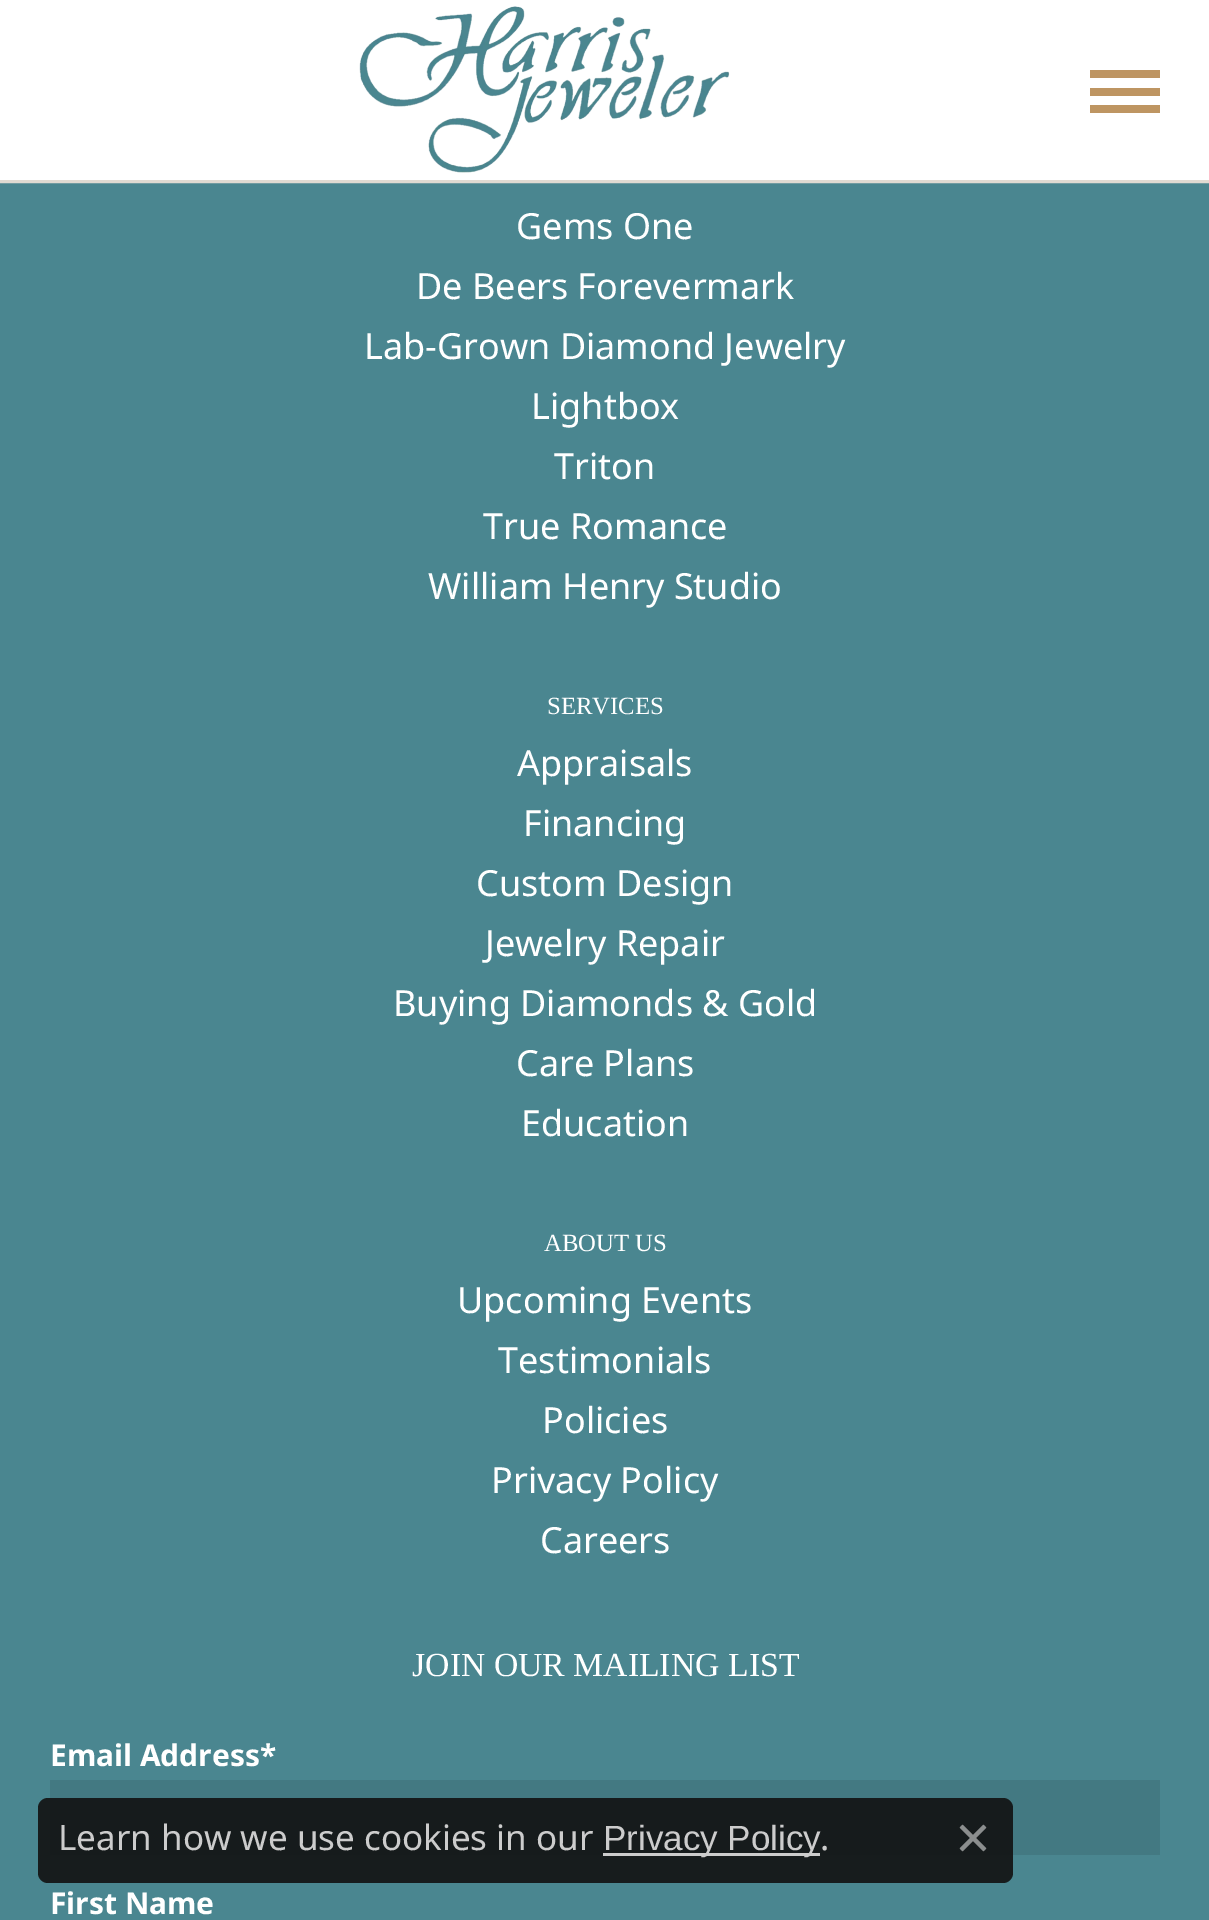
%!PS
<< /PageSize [1209 1920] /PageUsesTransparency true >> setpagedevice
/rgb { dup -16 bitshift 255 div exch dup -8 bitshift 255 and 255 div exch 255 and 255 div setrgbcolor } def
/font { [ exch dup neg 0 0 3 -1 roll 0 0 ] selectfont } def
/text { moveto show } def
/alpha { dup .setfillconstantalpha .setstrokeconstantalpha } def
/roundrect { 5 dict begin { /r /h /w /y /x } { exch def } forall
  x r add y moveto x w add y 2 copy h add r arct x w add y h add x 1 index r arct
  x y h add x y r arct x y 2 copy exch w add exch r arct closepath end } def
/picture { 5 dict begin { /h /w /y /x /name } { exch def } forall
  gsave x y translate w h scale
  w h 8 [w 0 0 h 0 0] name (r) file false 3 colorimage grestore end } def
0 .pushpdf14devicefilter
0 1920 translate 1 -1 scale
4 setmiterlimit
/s1 { /NotoSans-Regular 36 font 16#FFFFFF rgb } def
/s2 { /LiberationSerif-Regular 24.75 font 16#FFFFFF rgb } def
/s3 { /LiberationSerif-Regular 33.75 font 16#FFFFFF rgb } def
/s4 { /NotoSans-Bold 30 font 16#FFFFFF rgb } def
/s5 { /NotoSans-Regular 35 font 16#CCCCCC rgb } def
/s6 { /LiberationSans-Regular 35 font 16#CCCCCC rgb } def
16#4A8690 rgb
0 0 1209 1920 rectfill
16#E0DAD2 rgb
3 setlinewidth
-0.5 -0.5 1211 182 rectstroke
16#FFFFFF rgb
0 0 1209 180 rectfill
(pic1.raw) 359 6 371 167 picture
16#BE9562 rgb
1090 70 70 8 rectfill
1090 88 70 8 rectfill
1090 105 70 8 rectfill
s1
(Gems One) 516 239 text
(De Beers Forevermark) 416 299 text
(Lab-Grown Diamond Jewelry) 364 359 text
(Lightbox) 531 419 text
(Triton) 554 479 text
(True Romance) 483 539 text
(William Henry Studio) 428 599 text
s2
(SERVICES) 547 714 text
s1
(Appraisals) 517 776 text
(Financing) 523 836 text
(Custom Design) 476 896 text
(Jewelry Repair) 485 956 text
(Buying Diamonds & Gold) 393 1016 text
(Care Plans) 516 1076 text
(Education) 521 1136 text
s2
(ABOUT US) 544 1251 text
s1
(Upcoming Events) 457 1313 text
(Testimonials) 498 1373 text
(Policies) 542 1433 text
(Privacy Policy) 491 1493 text
(Careers) 540 1553 text
s3
(JOIN OUR MAILING LIST) 412 1676 text
s4
(Email Address*) 50 1766 text
16#437982 rgb
50 1780 1110 75 rectfill
s4
(First Name) 50 1914 text
0.9 alpha
16#111111 rgb
38 1798 975 85 10 roundrect fill
1 alpha
s5
(Learn how we use cookies in our) 58 1850 text
603 1853 217 3 rectfill
s6
(Privacy Policy) 603 1850 text
s5
(.) 820 1850 text
(pic2.raw) 959 1824 28 28 picture
.poppdf14devicefilter showpage
